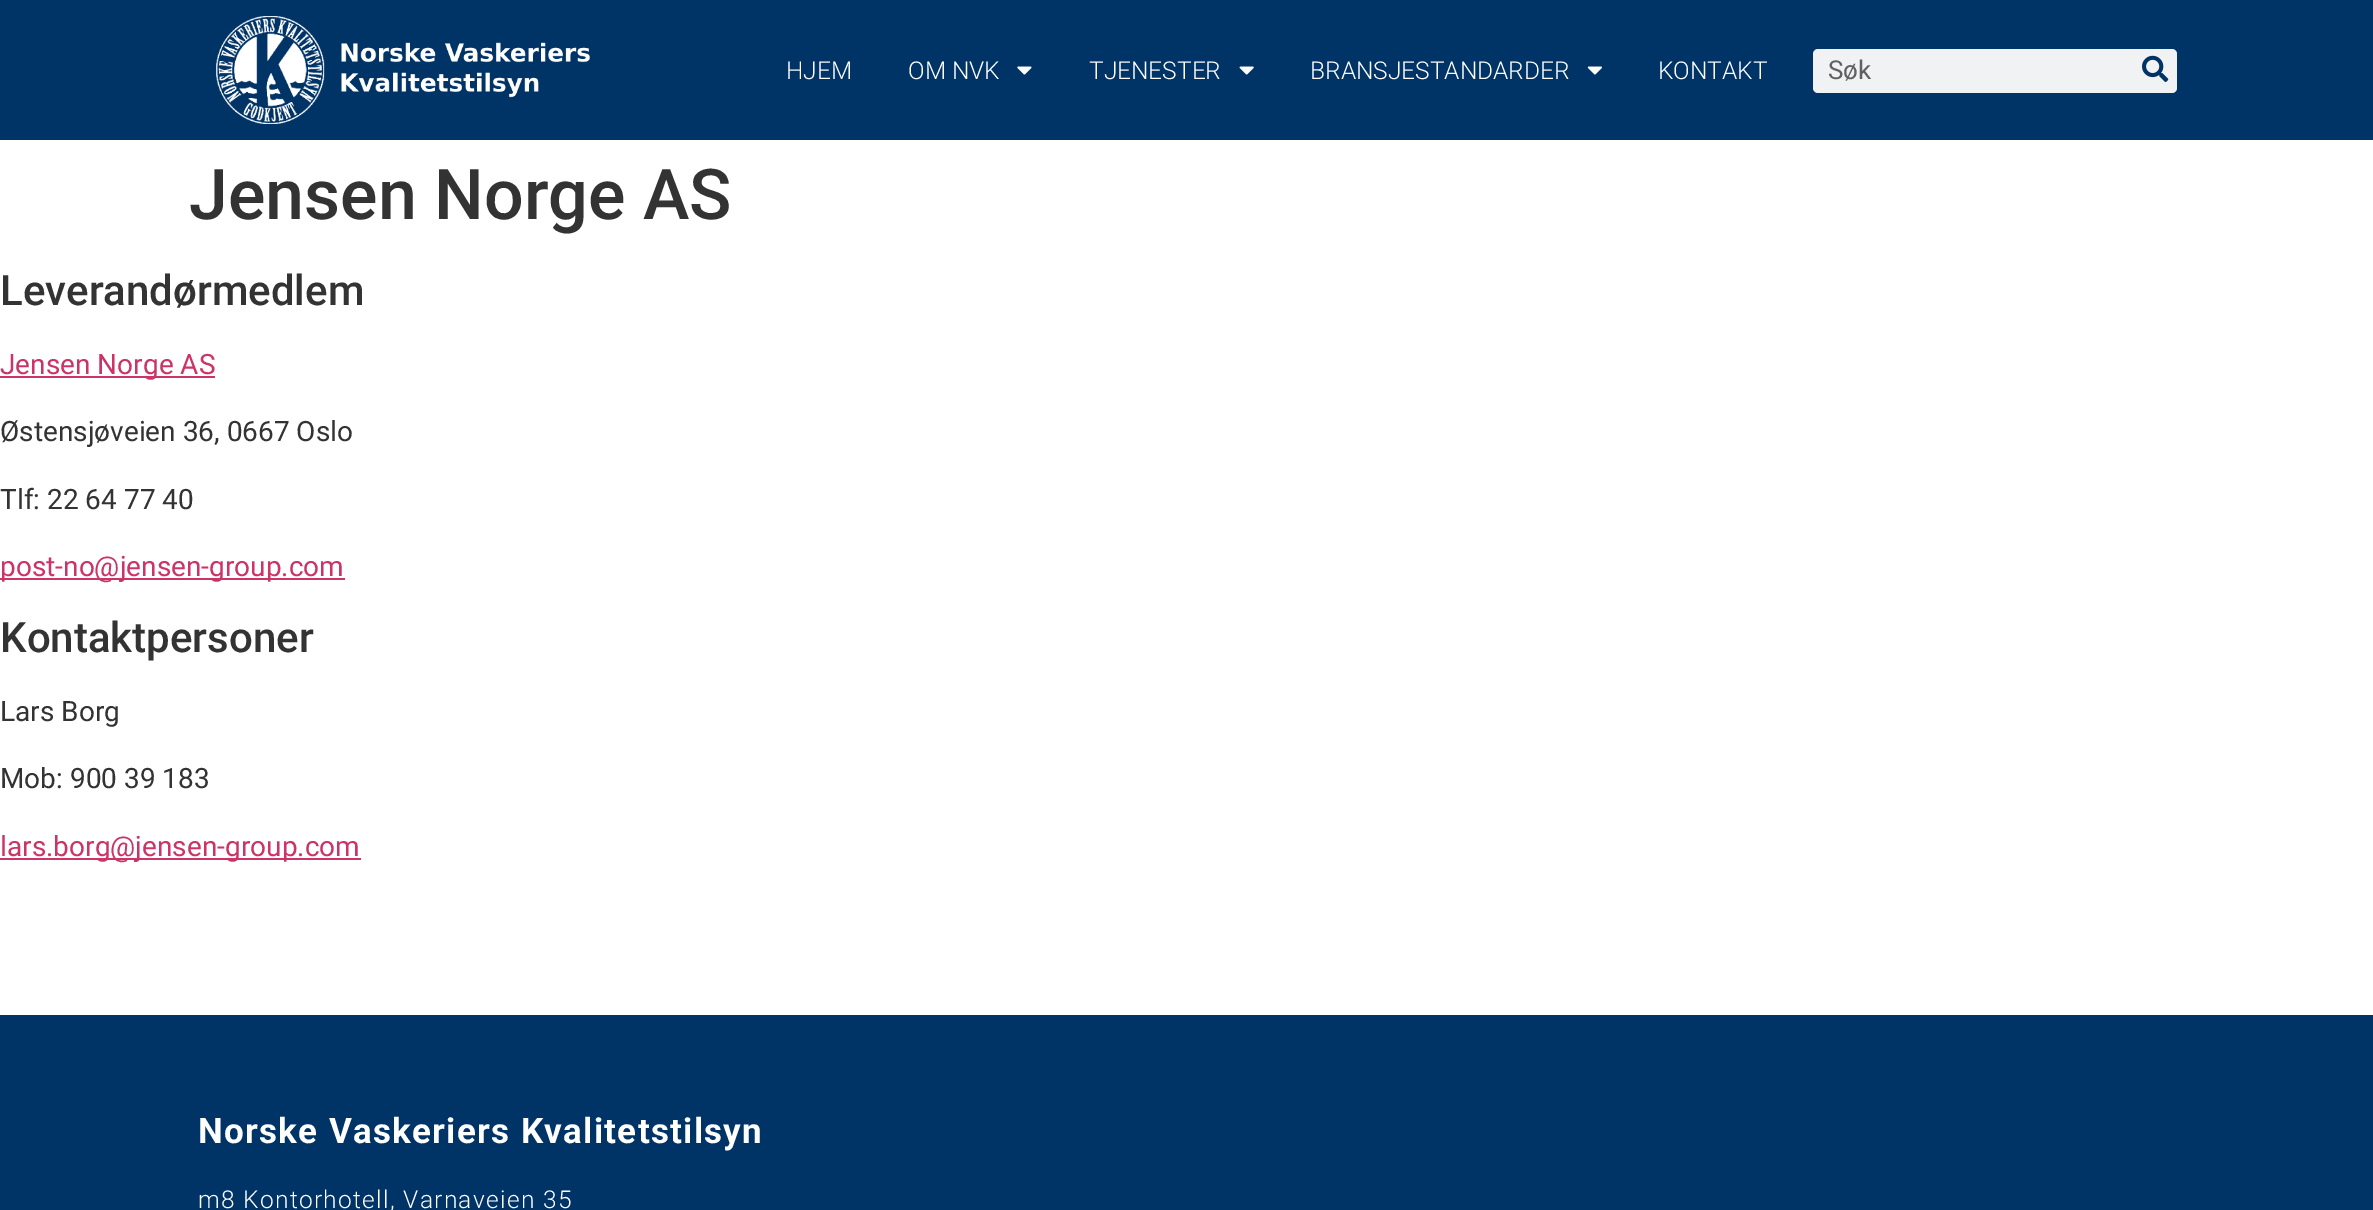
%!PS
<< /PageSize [2373 1210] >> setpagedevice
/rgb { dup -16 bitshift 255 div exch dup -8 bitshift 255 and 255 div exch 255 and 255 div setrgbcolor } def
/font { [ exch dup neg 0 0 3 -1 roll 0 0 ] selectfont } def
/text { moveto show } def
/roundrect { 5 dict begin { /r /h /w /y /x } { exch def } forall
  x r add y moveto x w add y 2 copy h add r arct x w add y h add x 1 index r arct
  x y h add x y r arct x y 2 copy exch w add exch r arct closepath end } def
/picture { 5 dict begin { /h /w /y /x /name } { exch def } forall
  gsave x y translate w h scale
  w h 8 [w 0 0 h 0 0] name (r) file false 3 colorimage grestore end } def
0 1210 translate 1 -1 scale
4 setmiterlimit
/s1 { /Roboto-Light 24.5 font 16#FFFFFF rgb } def
/s2 { /Roboto-Regular 26 font 16#606161 rgb } def
/s3 { /Roboto-Medium 70 font 16#333333 rgb } def
/s4 { /Roboto-Medium 42 font 16#333333 rgb } def
/s5 { /Roboto-Regular 28 font 16#CC3366 rgb } def
/s6 { /Roboto-Regular 28 font 16#333333 rgb } def
16#FFFFFF rgb
0 0 2373 1210 rectfill
16#003366 rgb
0 0 2373 140 rectfill
(pic1.raw) 216 16 374 108 picture
s1
(HJEM) 786 79 text
(OM NVK) 908 79 text
(pic2.raw) 1017 66 15 9 picture
(TJENESTER) 1089 79 text
(pic3.raw) 1239 66 15 9 picture
(BRANSJESTANDARDER) 1310 79 text
(pic4.raw) 1587 66 15 9 picture
(KONTAKT) 1658 79 text
16#F1F2F3 rgb
1813 49 364 44 5 roundrect fill
s2
(Søk) 1828 79 text
(pic5.raw) 2142 55 27 27 picture
s3
(Jensen Norge AS) 189 219 text
s4
(Leverandørmedlem) 0 305 text
16#CC3366 rgb
0 376 215 2 rectfill
s5
(Jensen Norge AS) 0 374 text
s6
(Østensjøveien 36, 0667 Oslo) 0 441 text
(Tlf: 22 64 77 40) 0 509 text
16#CC3366 rgb
0 578 345 2 rectfill
(post-no@jensen-group.com) 0 576 text
s4
(Kontaktpersoner) 0 652 text
s6
(Lars Borg) 0 721 text
(Mob: 900 39 183) 0 788 text
16#CC3366 rgb
0 858 361 2 rectfill
(lars.borg@jensen-group.com) 0 856 text
16#003366 rgb
0 1015 2373 195 rectfill
/Roboto-Bold 35 font
16#FFFFFF rgb
198 1143 moveto 1.3 0 (Norske Vaskeriers Kvalitetstilsyn) ashow
/Roboto-Light 24.5 font
198 1208 moveto 1.3 0 (m8 Kontorhotell, Varnaveien 35) ashow
showpage
